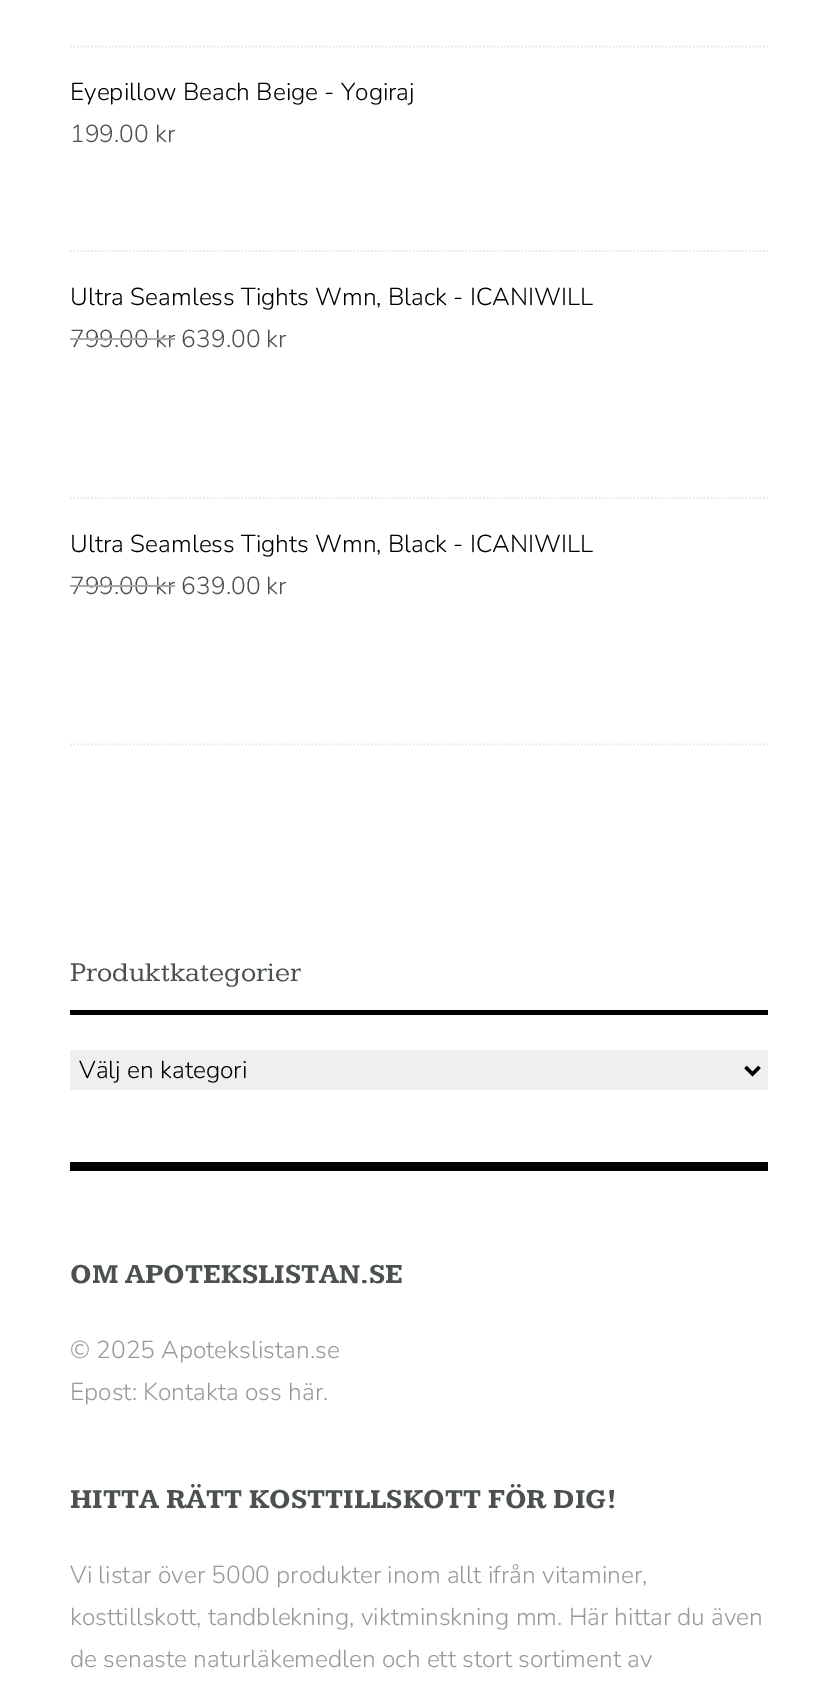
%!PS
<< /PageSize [838 1681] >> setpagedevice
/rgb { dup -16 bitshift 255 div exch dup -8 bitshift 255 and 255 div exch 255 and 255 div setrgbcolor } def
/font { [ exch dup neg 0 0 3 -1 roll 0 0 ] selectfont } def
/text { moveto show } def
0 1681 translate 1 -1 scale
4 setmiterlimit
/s1 { /Nunito-Light 24.5 font 16#000000 rgb } def
/s2 { /Nunito-Light 24.5 font 16#4A5150 rgb } def
/s3 { /Kameron-Regular 28 font 16#4A5150 rgb } def
/s4 { /Kameron-Bold 28 font 16#4A5150 rgb } def
/s5 { /Nunito-Light 24.5 font 16#999999 rgb } def
16#FFFFFF rgb
0 0 838 1681 rectfill
16#E9E9E9 rgb
1.8 setlinewidth
[1.75 1.75] 0 setdash
70 46.5 moveto 768 46.5 lineto stroke
70 251 moveto 768 251 lineto stroke
s1
(Eyepillow Beach Beige - Yogiraj) 70 100 text
s2
(199.00 kr) 70 142 text
16#E9E9E9 rgb
70 498 moveto 768 498 lineto stroke
s1
(Ultra Seamless Tights Wmn, Black - ICANIWILL) 70 305 text
s2
(799.00 kr 639.00 kr) 70 347 text
16#AAAAAA rgb
70 338 105 2 rectfill
16#E9E9E9 rgb
70 744.5 moveto 768 744.5 lineto stroke
s1
(Ultra Seamless Tights Wmn, Black - ICANIWILL) 70 552 text
s2
(799.00 kr 639.00 kr) 70 594 text
16#AAAAAA rgb
70 585 105 2 rectfill
16#000000 rgb
70 1010 698 5 rectfill
s3
(Produktkategorier) 70 981 text
16#EFEFEF rgb
70 1050 698 40 rectfill
16#000000 rgb
3.5 setlinewidth
[] 0 setdash
745.5 1067 moveto 752.5 1074 lineto 759.5 1067 lineto stroke
s1
(Välj en kategori) 79 1078 text
70 1162 698 9 rectfill
s4
(OM APOTEKSLISTAN.SE) 70 1283 text
s5
(© 2025 Apotekslistan.se) 70 1358 text
(Epost: Kontakta oss här.) 70 1400 text
s4
(HITTA RÄTT KOSTTILLSKOTT FÖR DIG!) 70 1508 text
s5
(Vi listar över 5000 produkter inom allt ifrån vitaminer,) 70 1583 text
(kosttillskott, tandblekning, viktminskning mm. Här hittar du även) 70 1625 text
(de senaste naturläkemedlen och ett stort sortiment av) 70 1667 text
showpage
